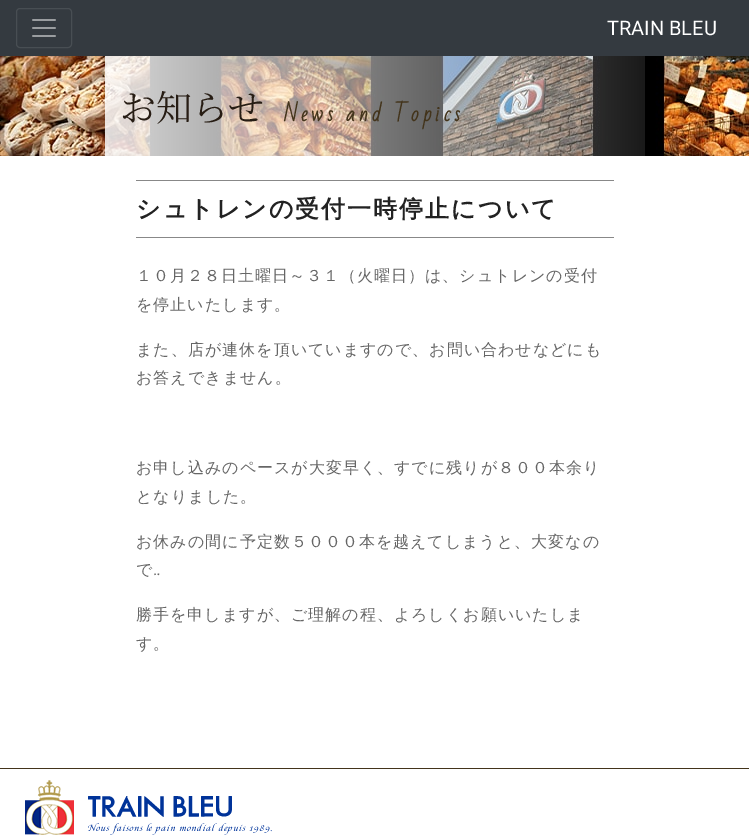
%!PS
<< /PageSize [749 836] >> setpagedevice
/rgb { dup -16 bitshift 255 div exch dup -8 bitshift 255 and 255 div exch 255 and 255 div setrgbcolor } def
/font { [ exch dup neg 0 0 3 -1 roll 0 0 ] selectfont } def
/text { moveto show } def
/roundrect { 5 dict begin { /r /h /w /y /x } { exch def } forall
  x r add y moveto x w add y 2 copy h add r arct x w add y h add x 1 index r arct
  x y h add x y r arct x y 2 copy exch w add exch r arct closepath end } def
/picture { 5 dict begin { /h /w /y /x /name } { exch def } forall
  gsave x y translate w h scale
  w h 8 [w 0 0 h 0 0] name (r) file false 3 colorimage grestore end } def
0 836 translate 1 -1 scale
4 setmiterlimit
/s1 { /Roboto-Regular 20 font 16#FFFFFF rgb } def
/s2 { /NotoSerifJP-Regular 36 font 16#271D14 rgb } def
16#FFFFFF rgb
0 0 749 836 rectfill
16#343A40 rgb
0 0 749 56 rectfill
16#484E53 rgb
16.5 8.5 55 39 3.5 roundrect stroke
(pic1.raw) 32 19 24 18 picture
s1
(TRAIN BLEU) 607 35 text
(pic2.raw) 0 56 749 100 picture
s2
(お知らせ) 120 121 text
/BadScript-Bold 20 font
16#43341B rgb
284 121 moveto 4 0 (News and Topics) ashow
16#888888 rgb
136 180 478 1 rectfill
136 237 478 1 rectfill
/WenQuanYiZenHei-Bold 24 font
16#222222 rgb
136 217 moveto 2 0 (シュトレンの受付一時停止について) ashow
/WenQuanYiZenHei-Medium 16 font
16#666666 rgb
136 281 moveto 1 0 (１０月２８日土曜日～３１（火曜日）は、シュトレンの受付) ashow
136 310 moveto 1 0 (を停止いたします。) ashow
136 355 moveto 1 0 (また、店が連休を頂いていますので、お問い合わせなどにも) ashow
136 383 moveto 1 0 (お答えできません。) ashow
136 473 moveto 1 0 (お申し込みのペースが大変早く、すでに残りが８００本余り) ashow
136 502 moveto 1 0 (となりました。) ashow
136 547 moveto 1 0 (お休みの間に予定数５０００本を越えてしまうと、大変なの) ashow
136 575 moveto 1 0 (で) ashow
/Roboto-Regular 16 font
153 575 moveto 1 0 (‥) ashow
/WenQuanYiZenHei-Medium 16 font
136 620 moveto 1 0 (勝手を申しますが、ご理解の程、よろしくお願いいたしま) ashow
136 649 moveto 1 0 (す。) ashow
16#43341B rgb
0 768 749 1 rectfill
(pic3.raw) 25 780 247 55 picture
showpage
